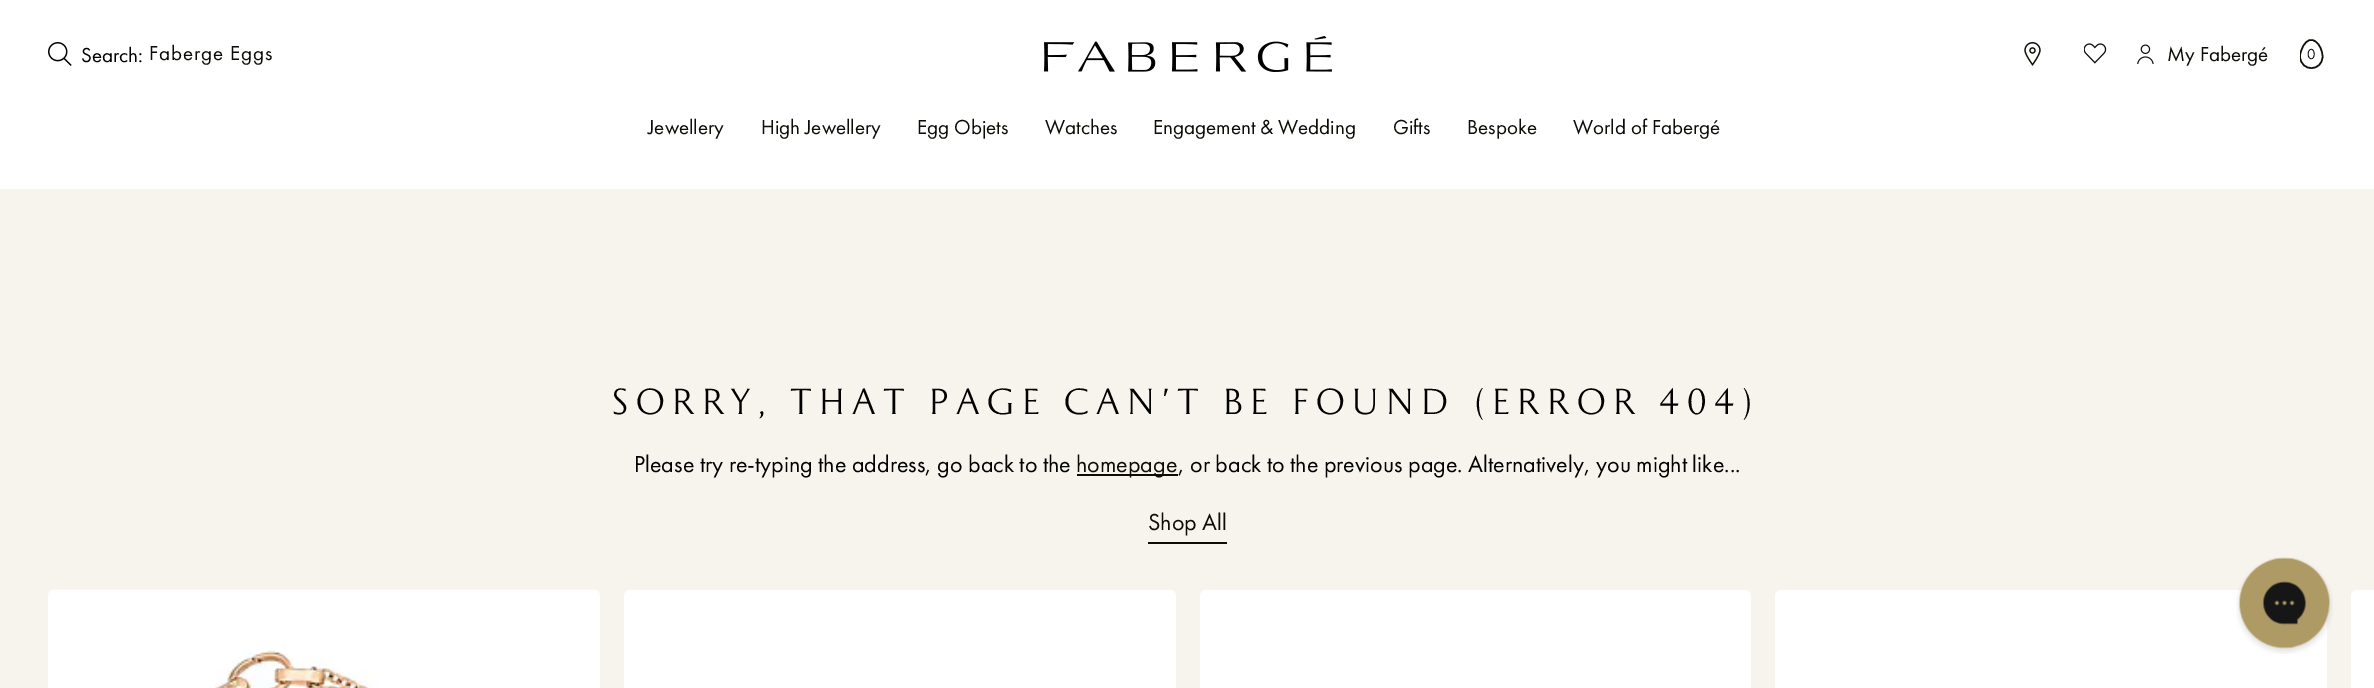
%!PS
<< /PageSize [2374 688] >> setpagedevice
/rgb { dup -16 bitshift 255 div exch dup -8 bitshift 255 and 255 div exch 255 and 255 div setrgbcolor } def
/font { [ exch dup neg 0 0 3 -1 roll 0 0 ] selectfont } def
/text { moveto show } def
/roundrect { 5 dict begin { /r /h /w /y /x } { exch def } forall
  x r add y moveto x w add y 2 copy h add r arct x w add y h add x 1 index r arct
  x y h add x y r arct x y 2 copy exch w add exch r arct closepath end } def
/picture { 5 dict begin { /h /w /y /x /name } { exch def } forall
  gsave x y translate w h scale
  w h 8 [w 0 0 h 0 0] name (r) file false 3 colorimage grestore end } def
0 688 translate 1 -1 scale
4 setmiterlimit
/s1 { /FuturaPT-Regular 21 font 16#000000 rgb } def
/s2 { /FuturaPT-Regular 21 font 16#0D0C07 rgb } def
/s3 { /FuturaPT-Regular 15 font 16#0D0C07 rgb } def
/s4 { /FuturaPT-Regular 24 font 16#000000 rgb } def
/s5 { /FuturaPT-Regular 24 font 16#0D0C07 rgb } def
16#F7F4EE rgb
0 0 2374 688 rectfill
16#FFFFFF rgb
0 0 2374 189 rectfill
(pic1.raw) 48 42 24 24 picture
s1
(Search:) 81 62 text
16#0D0C07 rgb
149 60 moveto 0.9 0 (Faberge Eggs) ashow
(pic2.raw) 1044 36 288 36 picture
(pic3.raw) 2024 42 17 24 picture
(pic4.raw) 2084 43 23 21 picture
(pic5.raw) 2137 44 17 20 picture
(My Fabergé) 2167 61 text
gsave
2300 39 24 30 rectclip
1.5 setlinewidth
2322.5 56.5 moveto 2322.5 45 2311 31.5 2303 46.5 curveto 2301.5 49.5 2300 53 2300 56.5 curveto 2301 72.5 2322.5 71.5 2322.5 56.5 curveto closepath stroke
grestore
s3
(0) 2307 59 text
s2
(Jewellery) 648 134 text
(High Jewellery) 761 134 text
(Egg Objets) 917 134 text
(Watches) 1045 134 text
(Engagement & Wedding) 1153 134 text
(Gifts) 1393 134 text
(Bespoke) 1467 134 text
(World of Fabergé) 1573 134 text
/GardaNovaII-Regular 36 font
16#000000 rgb
612 414 moveto 7.5 0 (SORRY, THAT PAGE CAN'T BE FOUND \(ERROR 404\)) ashow
s4
(Please try re-typing the address, go back to the) 634 472 text
16#0D0C07 rgb
1077 474 101 2 rectfill
(homepage) 1076 472 text
s4
(, or back to the previous page. Alternatively, you might like...) 1178 472 text
s5
(Shop All) 1148 530 text
1148 542 79 2 rectfill
(pic6.raw) 48 589 552 99 picture
16#FFFFFF rgb
624 590 552 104 6 roundrect fill
1200 590 551 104 6 roundrect fill
1775 590 552 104 6 roundrect fill
2357 590 moveto 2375 590 lineto 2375 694 lineto 2357 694 lineto 2353.5 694 2351 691.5 2351 688 curveto 2351 596 lineto 2351 592.5 2353.5 590 2357 590 curveto closepath fill
(pic7.raw) 2236 557 97 97 picture
showpage
